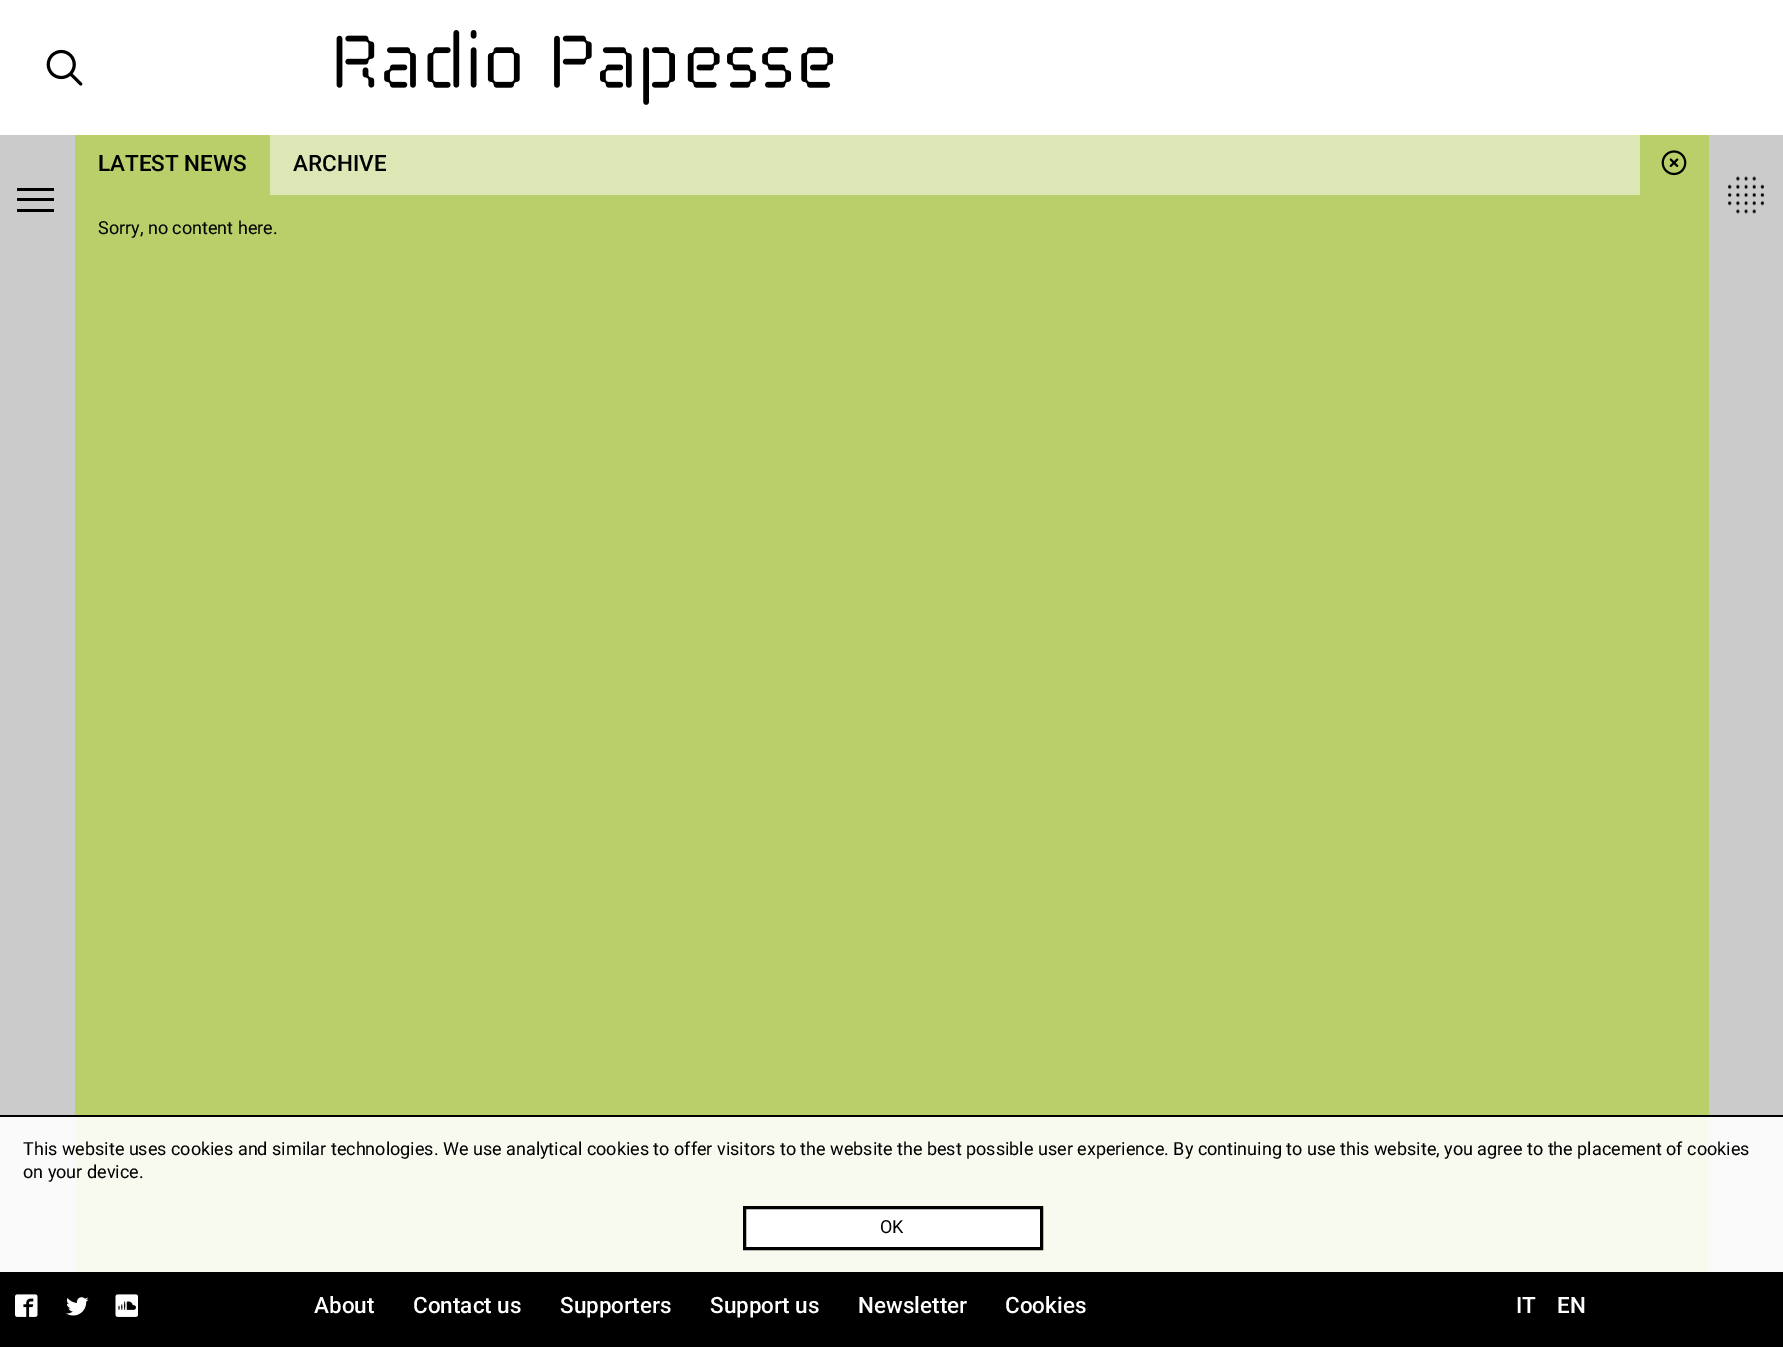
%!PS
<< /PageSize [1783 1347] >> setpagedevice
/rgb { dup -16 bitshift 255 div exch dup -8 bitshift 255 and 255 div exch 255 and 255 div setrgbcolor } def
/font { [ exch dup neg 0 0 3 -1 roll 0 0 ] selectfont } def
/text { moveto show } def
/picture { 5 dict begin { /h /w /y /x /name } { exch def } forall
  gsave x y translate w h scale
  w h 8 [w 0 0 h 0 0] name (r) file false 3 colorimage grestore end } def
0 1347 translate 1 -1 scale
4 setmiterlimit
/s1 { /Roboto-Medium 22.5 font 16#000000 rgb } def
/s2 { /Roboto-Regular 18 font 16#000000 rgb } def
/s3 { /Roboto-Medium 22.5 font 16#FFFFFF rgb } def
16#B8CF6A rgb
0 0 1783 1347 rectfill
16#FFFFFF rgb
0 0 1783 135 rectfill
(pic1.raw) 46 49 37 37 picture
(pic2.raw) 336 30 498 75 picture
16#CBCBCB rgb
0 135 75 980 rectfill
16#FAFAFA rgb
0 1117 75 155 rectfill
16#000000 rgb
17 188 37 3 rectfill
17 198 37 3 rectfill
17 209 37 3 rectfill
16#F8FAF0 rgb
75 1117 1634 155 rectfill
16#DCE7B5 rgb
270 135 1370 60 rectfill
s1
(LATEST NEWS) 98 171 text
(ARCHIVE) 293 171 text
(pic3.raw) 1661 150 26 26 picture
s2
(Sorry, no content here.) 98 234 text
16#CBCBCB rgb
1709 135 74 980 rectfill
16#FAFAFA rgb
1709 1117 74 155 rectfill
(pic4.raw) 1728 176 36 38 picture
16#000000 rgb
0 1115 1783 2 rectfill
(This website uses cookies and similar technologies. We use analytical cookies to offer visitors to the website the best possible user experience. By continuing to use this website, you agree to the placement of cookies) 23 1155 text
(on your device.) 23 1178 text
16#FFFFFF rgb
744.5 1207.5 moveto 1041.5 1207.5 lineto 1041.5 1248.5 lineto 744.5 1248.5 lineto closepath gsave fill grestore
16#000000 rgb
3 setlinewidth
stroke
(OK) 880 1233 text
0 1272 1783 75 rectfill
(pic5.raw) 15 1294 23 23 picture
(pic6.raw) 66 1297 23 19 picture
(pic7.raw) 115 1294 23 23 picture
s3
(About) 314 1313 text
(Contact us) 413 1313 text
(Supporters) 560 1313 text
(Support us) 710 1313 text
(Newsletter) 858 1313 text
(Cookies) 1005 1313 text
(IT) 1516 1313 text
(EN) 1557 1313 text
showpage
